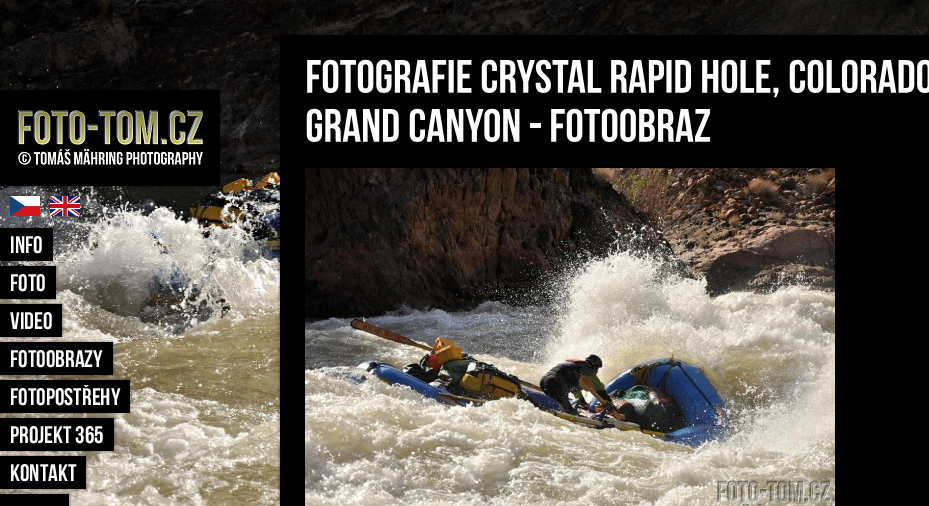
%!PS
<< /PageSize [929 506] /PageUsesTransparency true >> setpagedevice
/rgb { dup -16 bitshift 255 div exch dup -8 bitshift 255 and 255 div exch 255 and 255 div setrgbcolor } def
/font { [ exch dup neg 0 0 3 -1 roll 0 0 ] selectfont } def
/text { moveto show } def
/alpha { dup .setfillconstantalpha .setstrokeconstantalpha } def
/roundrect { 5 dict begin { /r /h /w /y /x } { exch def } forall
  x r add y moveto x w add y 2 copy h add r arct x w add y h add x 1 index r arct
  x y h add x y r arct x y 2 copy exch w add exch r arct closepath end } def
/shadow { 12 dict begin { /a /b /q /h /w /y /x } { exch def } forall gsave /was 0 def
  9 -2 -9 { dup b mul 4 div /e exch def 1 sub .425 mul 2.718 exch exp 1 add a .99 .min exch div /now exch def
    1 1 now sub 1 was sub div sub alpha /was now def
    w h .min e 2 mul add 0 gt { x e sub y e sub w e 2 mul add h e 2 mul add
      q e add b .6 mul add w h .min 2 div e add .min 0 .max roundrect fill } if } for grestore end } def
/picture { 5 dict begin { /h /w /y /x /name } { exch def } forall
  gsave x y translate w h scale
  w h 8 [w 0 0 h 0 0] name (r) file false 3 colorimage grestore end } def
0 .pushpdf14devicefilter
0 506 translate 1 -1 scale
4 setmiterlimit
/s1 { /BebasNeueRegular-Regular 24 font 16#FFFFFF rgb } def
16#FFFFFF rgb
0 0 929 506 rectfill
(pic1.raw) 0 0 929 506 picture
16#000000 rgb
0 90 220 96 0 1.5 0.5 shadow
0 90 220 96 rectfill
(pic2.raw) 17 108 193 64 picture
(pic3.raw) 10 196 30 20 picture
(pic4.raw) 50 196 30 20 picture
0 228 53 33 0 1.5 0.5 shadow
0 228 53 33 rectfill
s1
(INFO) 10 253 text
16#000000 rgb
0 266 56 33 0 1.5 0.5 shadow
0 266 56 33 rectfill
s1
(FOTO) 10 291 text
16#000000 rgb
0 304 62 33 0 1.5 0.5 shadow
0 304 62 33 rectfill
s1
(VIDEO) 10 329 text
16#000000 rgb
0 342 113 33 0 1.5 0.5 shadow
0 342 113 33 rectfill
s1
(FOTOOBRAZY) 10 367 text
16#000000 rgb
0 380 130 33 0 1.5 0.5 shadow
0 380 130 33 rectfill
s1
(FOTOPOSTŘEHY) 10 405 text
16#000000 rgb
0 418 114 33 0 1.5 0.5 shadow
0 418 114 33 rectfill
s1
(PROJEKT 365) 10 443 text
16#000000 rgb
0 456 86 33 0 1.5 0.5 shadow
0 456 86 33 rectfill
s1
(KONTAKT) 10 481 text
16#000000 rgb
0 494 69 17 0 1.5 0.5 shadow
0 494 69 12 rectfill
280 35 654 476 0 1.5 0.5 shadow
280 35 649 471 rectfill
(pic5.raw) 307 59 165 34 picture
(pic6.raw) 481 59 121 34 picture
(pic7.raw) 611 60 81 33 picture
(pic8.raw) 702 59 77 39 picture
(pic9.raw) 789 59 140 34 picture
(pic10.raw) 306 108 93 34 picture
(pic11.raw) 409 108 111 34 picture
16#FFFFFF rgb
530 123 11 5 rectfill
(pic12.raw) 551 108 159 34 picture
(pic13.raw) 305 168 530 338 picture
.poppdf14devicefilter showpage
